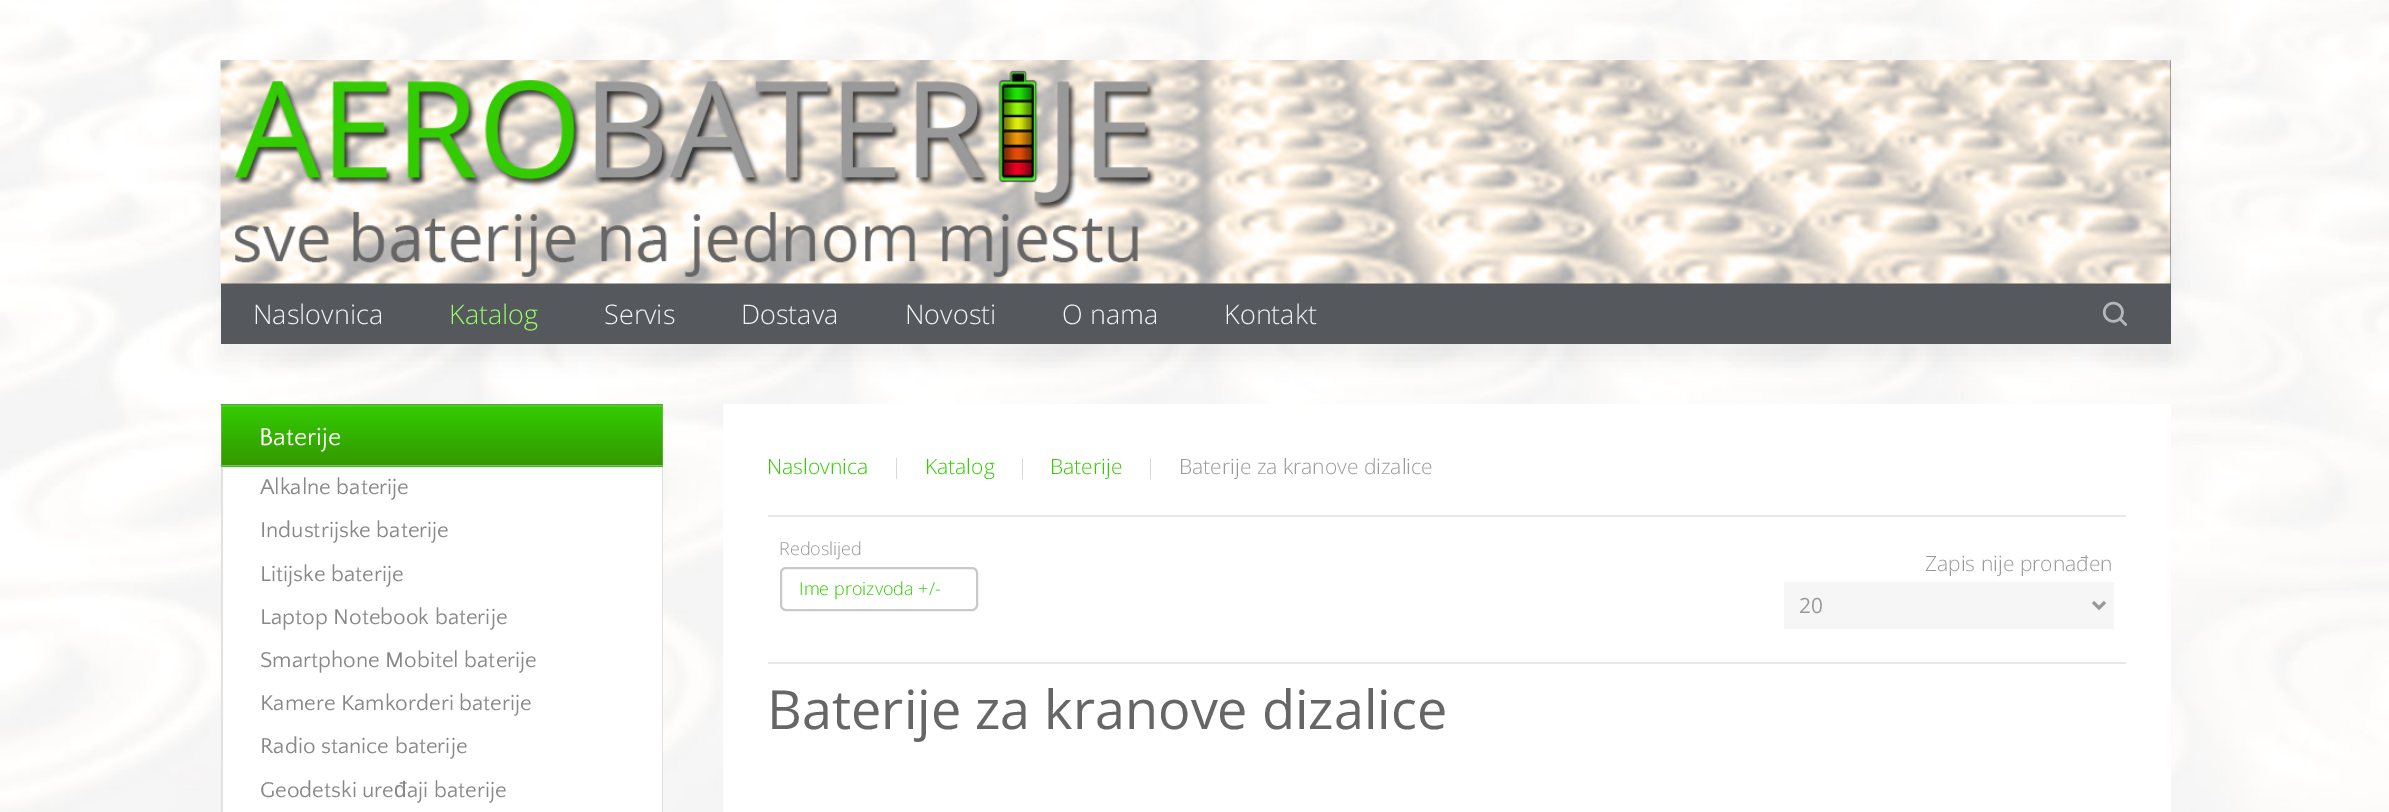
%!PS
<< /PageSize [2389 812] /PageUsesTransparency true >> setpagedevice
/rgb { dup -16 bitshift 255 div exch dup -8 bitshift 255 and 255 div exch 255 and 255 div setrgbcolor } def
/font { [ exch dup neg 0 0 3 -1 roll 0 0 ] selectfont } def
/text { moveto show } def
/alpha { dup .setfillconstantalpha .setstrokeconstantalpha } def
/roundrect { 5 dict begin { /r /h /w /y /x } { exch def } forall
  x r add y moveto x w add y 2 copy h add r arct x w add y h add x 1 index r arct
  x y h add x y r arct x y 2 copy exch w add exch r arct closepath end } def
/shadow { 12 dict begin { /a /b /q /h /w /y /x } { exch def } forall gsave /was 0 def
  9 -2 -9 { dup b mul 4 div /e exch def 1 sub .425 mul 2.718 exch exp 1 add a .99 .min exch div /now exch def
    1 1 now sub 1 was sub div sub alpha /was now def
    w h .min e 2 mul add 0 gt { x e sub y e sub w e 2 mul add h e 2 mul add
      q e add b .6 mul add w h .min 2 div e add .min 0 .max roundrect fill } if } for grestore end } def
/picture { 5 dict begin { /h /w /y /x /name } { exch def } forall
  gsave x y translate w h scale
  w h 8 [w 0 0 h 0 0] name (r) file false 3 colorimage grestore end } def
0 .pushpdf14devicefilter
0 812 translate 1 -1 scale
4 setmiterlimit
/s1 { /OpenSans-Light 27 font 16#F5F5F5 rgb } def
/s2 { /OpenSans-Light 27 font 16#99FF66 rgb } def
/s3 { /QuattrocentoSans-Regular 25.5 font 16#FFFFFF rgb } def
/s4 { /QuattrocentoSans-Regular 22.5 font 16#888888 rgb } def
/s5 { /LiberationSans-Regular 22.5 font 16#888888 rgb } def
/s6 { /OpenSans-Light 21 font 16#33CC00 rgb } def
/s7 { /OpenSans-Light 21 font 16#CCCCCC rgb } def
/s8 { /OpenSans-Light 21 font 16#999999 rgb } def
/s9 { /OpenSans-Light 18 font 16#999999 rgb } def
/s10 { /OpenSans-Light 18 font 16#33CC00 rgb } def
/s11 { /OpenSans-Regular 21 font 16#999999 rgb } def
/s12 { /OpenSans-Regular 54 font 16#666666 rgb } def
16#FFFFFF rgb
0 0 2389 812 rectfill
(pic1.raw) 0 0 2389 812 picture
16#000000 rgb
221 75 1950 284 0 11 0.05 shadow
16#55595D rgb
221 60 1950 284 rectfill
(pic2.raw) 220 60 1951 224 picture
s1
(Naslovnica) 253 324 text
s2
(Katalog) 449 324 text
s1
(Servis) 604 324 text
(Dostava) 741 324 text
(Novosti) 905 324 text
(O nama) 1062 324 text
(Kontakt) 1224 324 text
(pic3.raw) 2102 301 26 25 picture
gsave 221 404 moveto 663 404 lineto 663 405 lineto 221 405 lineto closepath clip newpath
<< /ShadingType 2 /ColorSpace /DeviceRGB /Coords [222 405 222 345] /Extend [true true] /Function << /FunctionType 2 /Domain [0 1] /C0 [0.2 0.6 0] /C1 [0.2 0.8 0] /N 1 >> >> shfill grestore
gsave 221 405 moveto 663 405 lineto 663 465 lineto 221 465 lineto closepath clip newpath
<< /ShadingType 2 /ColorSpace /DeviceRGB /Coords [222 465 222 405] /Extend [true true] /Function << /FunctionType 2 /Domain [0 1] /C0 [0.2 0.6 0] /C1 [0.2 0.8 0] /N 1 >> >> shfill grestore
gsave 221 465 moveto 663 465 lineto 663 467 lineto 221 467 lineto closepath clip newpath
<< /ShadingType 2 /ColorSpace /DeviceRGB /Coords [222 525 222 465] /Extend [true true] /Function << /FunctionType 2 /Domain [0 1] /C0 [0.2 0.6 0] /C1 [0.2 0.8 0] /N 1 >> >> shfill grestore
16#47D11A rgb
222 405 440 2 rectfill
16#62A143 rgb
220 404 moveto 663 404 lineto 662 405 lineto 222 405 lineto closepath fill
0.38 alpha
16#AFAFAF rgb
663 404 moveto 663 466 lineto 662 465 lineto 662 405 lineto closepath fill
0.7 alpha
663 466 moveto 220 466 lineto 222 465 lineto 662 465 lineto closepath fill
gsave
221 404 442 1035 rectclip
0.38 alpha
220 466 moveto 220 404 lineto 222 405 lineto 222 465 lineto closepath fill
grestore
1 alpha
s3
(Baterije) 259 445 text
223 467 439 345 rectfill
16#E1E1E1 rgb
662 467 1 345 rectfill
221 467 2 345 rectfill
s4
(Alkalne baterije) 260 494 text
(Industrijske baterije) 260 537 text
(Litijske baterije) 260 581 text
(Laptop Notebook baterije) 260 624 text
(Smartphone Mobitel baterije) 260 667 text
(Kamere Kamkorderi baterije) 260 710 text
(Radio stanice baterije) 260 753 text
(Geodetski ure) 260 797 text
s5
(đ) 394 797 text
s4
(aji baterije) 407 797 text
16#FFFFFF rgb
723 404 1448 408 rectfill
s6
(Naslovnica) 767 474 text
s7
(|) 891 474 text
s6
(Katalog) 925 474 text
s7
(|) 1017 474 text
s6
(Baterije) 1050 474 text
s7
(|) 1145 474 text
s8
(Baterije za kranove dizalice) 1179 474 text
16#E9E8E8 rgb
768 515 1358 2 rectfill
768 662 1358 2 rectfill
s9
(Redoslijed) 779 555 text
16#CAC9C9 rgb
2 setlinewidth
781 568 196 42 5 roundrect stroke
s10
(Ime proizvoda +/-) 799 595 text
s8
(Zapis nije pronađen) 1925 571 text
16#F6F6F6 rgb
1784 582 330 47 rectfill
16#999999 rgb
3 setlinewidth
2093 602 moveto 2099 608 lineto 2105 602 lineto stroke
s11
(20) 1799 613 text
s12
(Baterije za kranove dizalice) 767 729 text
.poppdf14devicefilter showpage
